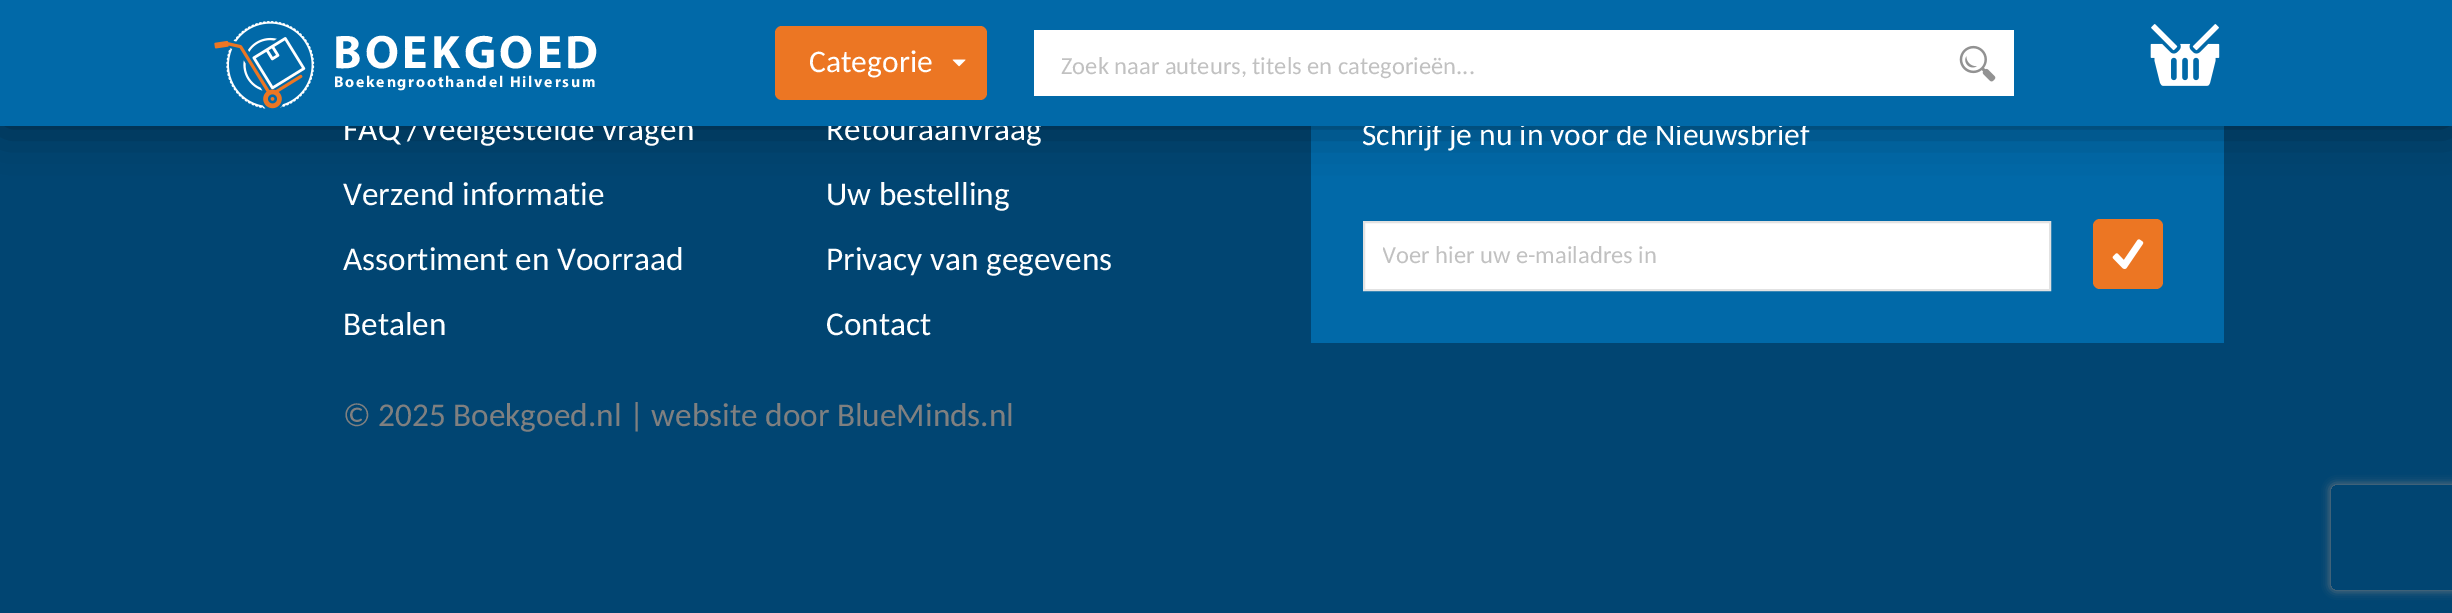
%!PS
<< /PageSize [2452 613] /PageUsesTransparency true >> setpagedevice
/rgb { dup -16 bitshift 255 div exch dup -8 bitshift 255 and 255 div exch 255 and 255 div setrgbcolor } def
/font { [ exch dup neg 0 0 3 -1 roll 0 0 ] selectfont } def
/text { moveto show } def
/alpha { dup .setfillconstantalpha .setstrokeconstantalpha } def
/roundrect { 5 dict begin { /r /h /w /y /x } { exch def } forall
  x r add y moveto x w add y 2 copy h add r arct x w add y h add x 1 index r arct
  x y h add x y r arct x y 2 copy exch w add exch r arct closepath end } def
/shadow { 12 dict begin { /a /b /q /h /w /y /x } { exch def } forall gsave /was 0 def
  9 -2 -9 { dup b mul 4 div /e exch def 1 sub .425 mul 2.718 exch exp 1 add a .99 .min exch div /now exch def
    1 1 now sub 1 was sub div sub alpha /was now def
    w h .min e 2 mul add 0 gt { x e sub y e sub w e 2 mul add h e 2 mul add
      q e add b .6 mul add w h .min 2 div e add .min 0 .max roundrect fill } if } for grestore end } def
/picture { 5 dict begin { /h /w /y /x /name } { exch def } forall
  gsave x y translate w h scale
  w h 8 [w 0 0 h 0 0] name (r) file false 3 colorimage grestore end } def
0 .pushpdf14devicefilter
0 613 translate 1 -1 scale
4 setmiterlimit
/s1 { /Carlito-Regular 33.25 font 16#FFFFFF rgb } def
/s2 { /Carlito-Regular 31.5 font 16#FFFFFF rgb } def
/s3 { /Carlito-Regular 24.5 font 16#C1C1C1 rgb } def
/s4 { /Carlito-Regular 33.25 font 16#808080 rgb } def
16#014572 rgb
0 0 2452 613 rectfill
16#0169A8 rgb
1311 126 913 217 rectfill
16#000000 rgb
2 2 2450 122 0 23 0.5 shadow
s1
(FAQ /Veelgestelde vragen) 343 140 text
(Retouraanvraag) 826 140 text
s2
(Schrijf je nu in voor de Nieuwsbrief) 1362 145 text
16#0169A8 rgb
0 0 2452 126 rectfill
(pic1.raw) 214 21 101 88 picture
/Myriad-Bold 47.25 font
16#FFFFFF rgb
333 68 moveto 3.5 0 (BOEKGOED) ashow
/Myriad-Bold 15.75 font
334 87 moveto 1.75 0 (Boekengroothandel Hilversum) ashow
16#EC7623 rgb
775 26 212 74 7 roundrect fill
s2
(Categorie) 809 72 text
(pic2.raw) 952 59 14 8 picture
1034 30 980 66 rectfill
s3
(Zoek naar auteurs, titels en categorieën...) 1061 74 text
(pic3.raw) 1959 45 37 37 picture
(pic4.raw) 2150 24 70 62 picture
s1
(Verzend informatie) 343 205 text
(Assortiment en Voorraad) 343 270 text
(Betalen) 343 335 text
(Uw bestelling) 826 205 text
(Privacy van gegevens) 826 270 text
(Contact) 826 335 text
1364 222 moveto 2050 222 lineto 2050 290 lineto 1364 290 lineto closepath gsave fill grestore
16#E2E2E2 rgb
2 setlinewidth
stroke
gsave
1383 240 649 30 rectclip
s3
(Voer hier uw e-mailadres in) 1382 263 text
grestore
16#EC7623 rgb
2093 219 70 70 7 roundrect fill
(pic5.raw) 2112 239 32 30 picture
s4
(© 2025 Boekgoed.nl | website door BlueMinds.nl) 343 426 text
gsave
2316 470 moveto 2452 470 lineto 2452 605 lineto 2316 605 lineto closepath 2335 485 moveto 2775 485 lineto 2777 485 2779 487 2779 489 curveto 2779 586 lineto 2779 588 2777 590 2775 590 curveto 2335 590 lineto 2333 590 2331 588 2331 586 curveto 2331 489 lineto 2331 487 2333 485 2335 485 curveto closepath eoclip newpath
2331 485 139 105 4 4.5 1 shadow
grestore
.poppdf14devicefilter showpage
